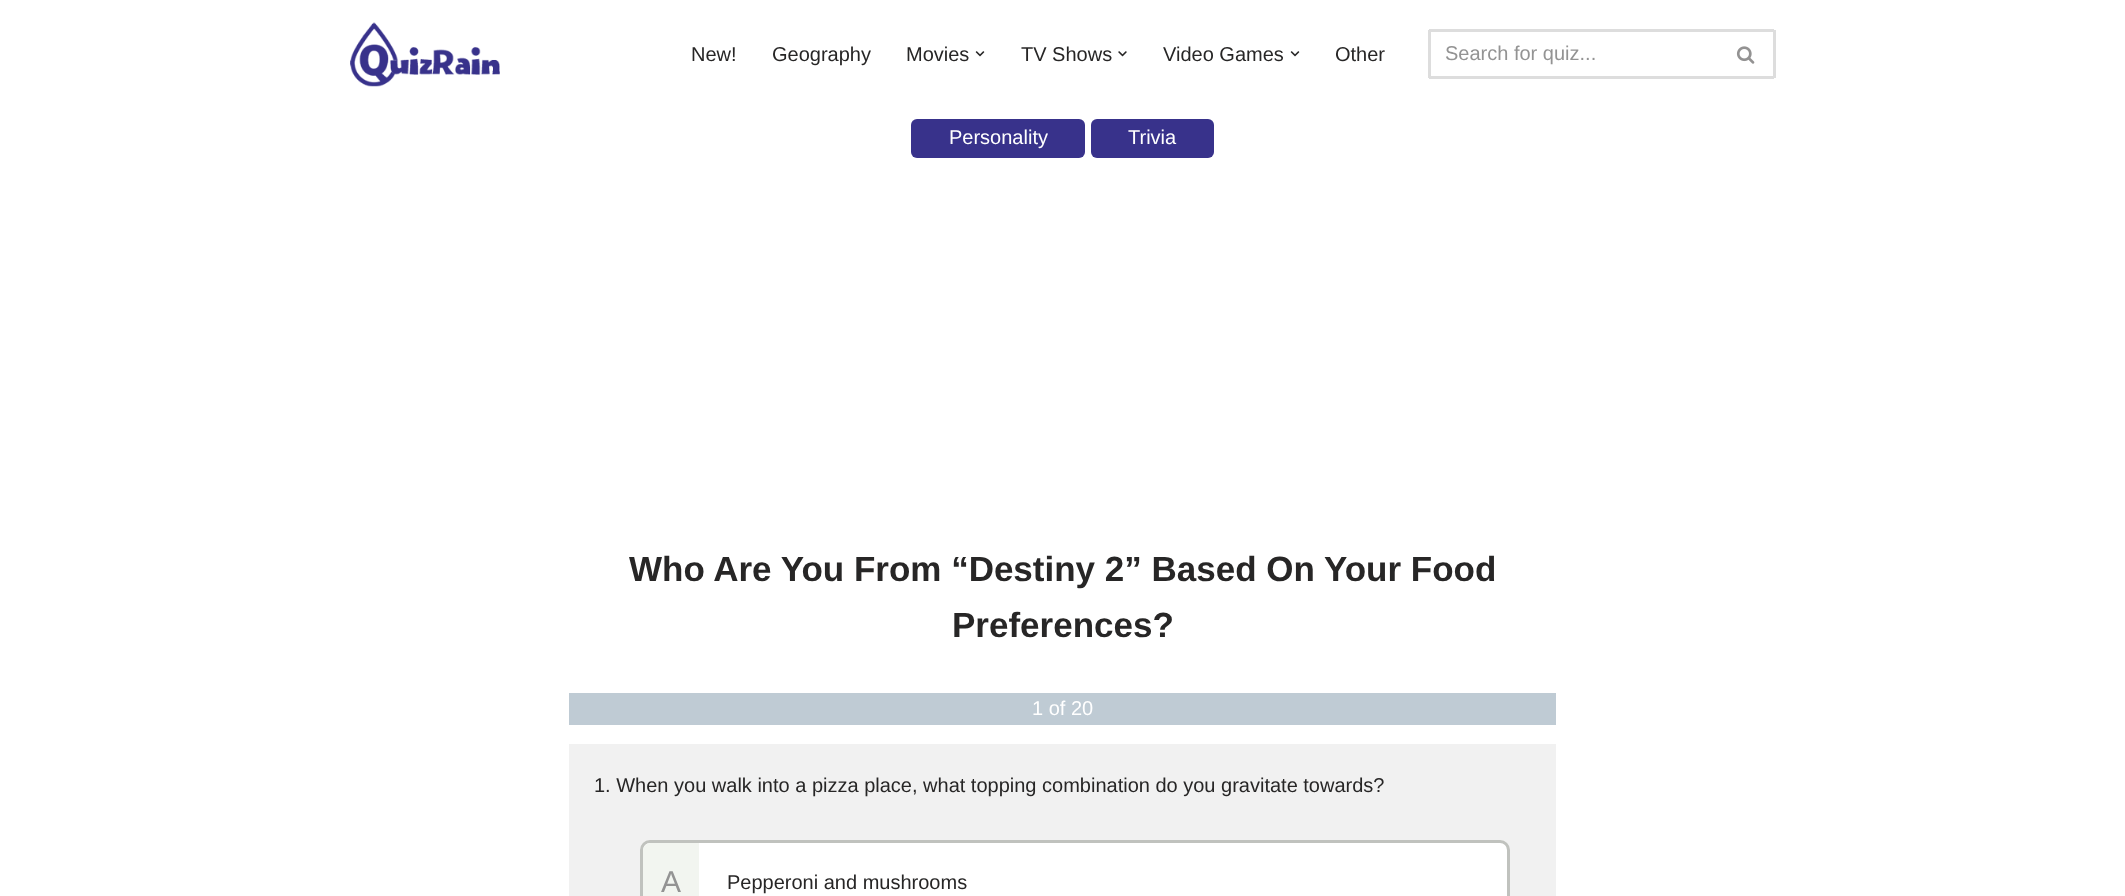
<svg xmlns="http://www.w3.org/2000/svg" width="2125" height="896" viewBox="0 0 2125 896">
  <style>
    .t1 { font: 20px Liberation Sans; fill: #272626; }
    .t2 { font: 20px Liberation Sans; fill: #939393; }
    .t3 { font: 20px Liberation Sans; fill: #fff; }
    .t4 { font: bold 35px Liberation Sans; fill: #272626; }
    .t5 { font: 30px Liberation Sans; fill: #939393; }
  </style>
  <rect width="100%" height="100%" fill="#fff"/>
  <image x="350" y="22" width="150" height="65" href="images/1.png"/>
  <text x="691" y="61" class="t1">New!</text>
  <text x="772" y="61" class="t1">Geography</text>
  <text x="906" y="61" class="t1">Movies</text>
  <image x="975" y="51" width="10" height="6" href="images/2.png"/>
  <text x="1021" y="61" class="t1">TV Shows</text>
  <image x="1118" y="51" width="9" height="6" href="images/3.png"/>
  <text x="1163" y="61" class="t1">Video Games</text>
  <image x="1290" y="51" width="10" height="6" href="images/2.png"/>
  <text x="1335" y="61" class="t1">Other</text>
  <rect x="1429" y="29" width="345" height="3" fill="#ddd"/>
  <rect x="1429" y="76" width="290" height="3" fill="#ddd"/>
  <rect x="1428" y="30" width="3" height="48" fill="#ddd"/>
  <text x="1445" y="60" class="t2">Search for quiz...</text>
  <rect x="1773" y="30" width="3" height="48" fill="#ddd"/>
  <rect x="1719" y="76" width="55" height="3" fill="#ddd"/>
  <image x="1736" y="46" width="19" height="18" href="images/4.png"/>
  <rect x="911" y="119" width="174" height="39" rx="6" fill="#38328b"/>
  <text x="949" y="144" class="t3">Personality</text>
  <rect x="1091" y="119" width="123" height="39" rx="6" fill="#38328b"/>
  <text x="1128" y="144" class="t3">Trivia</text>
  <text x="629" y="581" class="t4">Who Are You From “Destiny 2” Based On Your Food</text>
  <text x="952" y="637" class="t4">Preferences?</text>
  <rect x="569" y="693" width="987" height="32" fill="#bfcbd4"/>
  <text x="1032" y="715" class="t3">1 of 20</text>
  <rect x="569" y="744" width="987" height="152" fill="#f1f1f1"/>
  <text x="594" y="792" class="t1">1. When you walk into a pizza place, what topping combination do you gravitate towards?</text>
  <rect x="641.5" y="841.5" width="867" height="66" rx="8.5" fill="#fff" stroke="#c0c2be" stroke-width="3"/>
  <path d="M651 843H699V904H651C646.5 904 643 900.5 643 896V851C643 846.5 646.5 843 651 843Z" fill="#f2f5f0"/>
  <text x="661" y="892" class="t5">A</text>
  <text x="727" y="889" class="t1">Pepperoni and mushrooms</text>
</svg>
